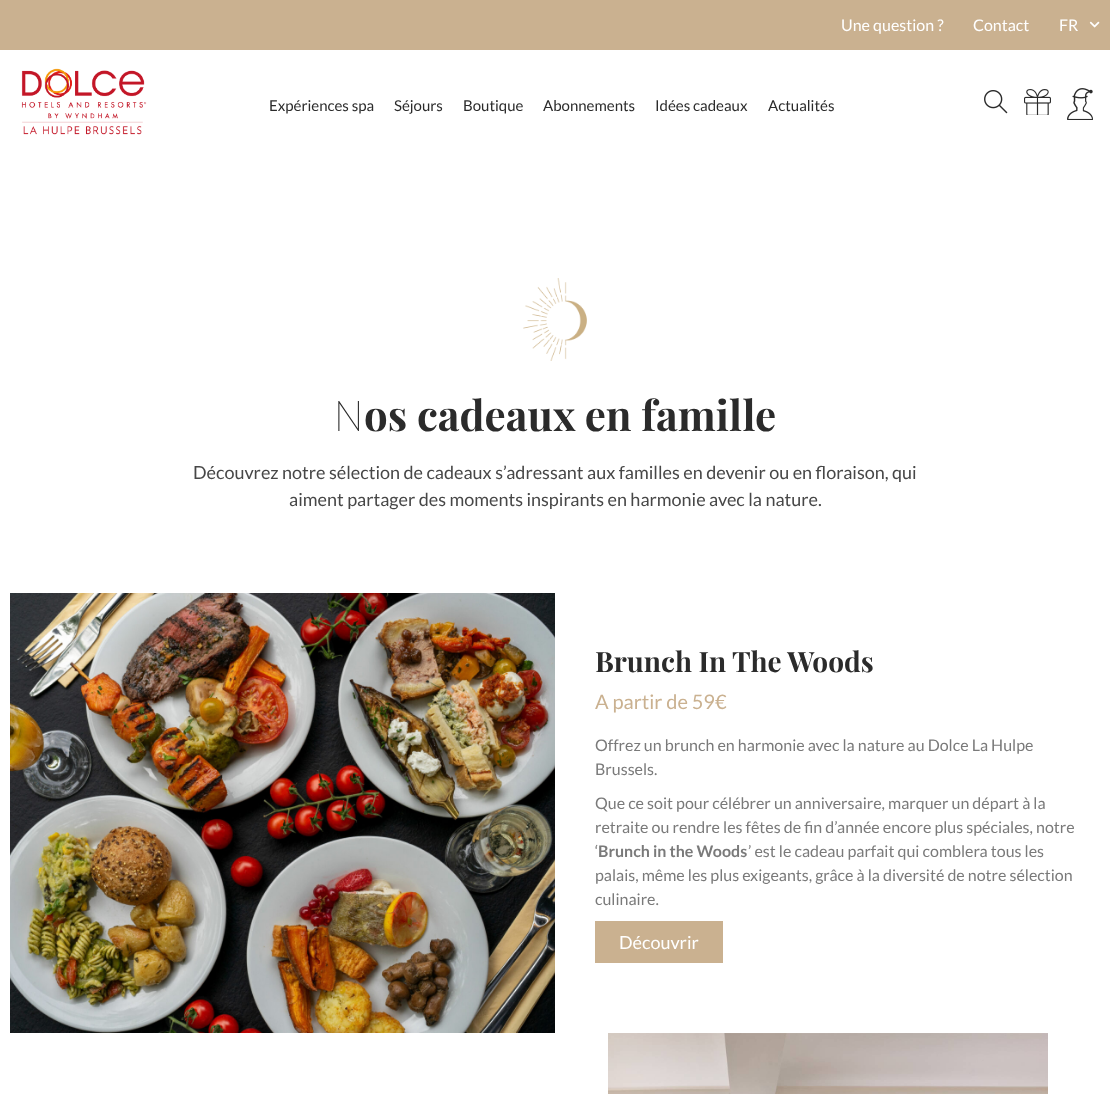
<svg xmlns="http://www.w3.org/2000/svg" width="1110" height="1094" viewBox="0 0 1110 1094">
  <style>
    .t1 { font: 16px Lato; fill: #fff; }
    .t2 { font: 15px Lato; fill: #2b2b2b; }
    .t3 { font: 100 42px Noto Sans; fill: #2b2b2b; }
    .t4 { font: bold 42px Playfair Display; fill: #2b2b2b; }
    .t5 { font: 18px Lato; fill: #474747; }
    .t6 { font: bold 28px Playfair Display; fill: #2b2b2b; }
    .t7 { font: 20px Lato; fill: #cab190; }
    .t8 { font: 16px Lato; fill: #7a7a7a; }
    .t9 { font: bold 16px Lato; fill: #7a7a7a; }
    .t10 { font: 18px Lato; fill: #fff; }
  </style>
  <rect width="100%" height="100%" fill="#fff"/>
  <rect x="0" y="0" width="1110" height="50" fill="#cab190"/>
  <text x="841" y="31" class="t1">Une question ?</text>
  <text x="973" y="31" class="t1">Contact</text>
  <text x="1059" y="31" class="t1">FR</text>
  <image x="1089" y="21" width="11" height="7" href="images/1.png"/>
  <image x="21" y="68" width="126" height="67" href="images/2.png"/>
  <text x="269" y="111" class="t2">Expériences spa</text>
  <text x="394" y="111" class="t2">Séjours</text>
  <text x="463" y="111" class="t2">Boutique</text>
  <text x="543" y="111" class="t2">Abonnements</text>
  <text x="655" y="111" class="t2">Idées cadeaux</text>
  <text x="768" y="111" class="t2">Actualités</text>
  <image x="984" y="90" width="24" height="24" href="images/3.png"/>
  <image x="1024" y="89" width="27" height="26" href="images/4.png"/>
  <image x="1067" y="88" width="26" height="32" href="images/5.png"/>
  <image x="523" y="278" width="64" height="83" href="images/6.png"/>
  <text x="334" y="431" class="t3">N</text>
  <text x="364" y="431" class="t4">os cadeaux en famille</text>
  <text x="193" y="479" class="t5">Découvrez notre sélection de cadeaux s’adressant aux familles en devenir ou en floraison, qui</text>
  <text x="289" y="506" class="t5">aiment partager des moments inspirants en harmonie avec la nature.</text>
  <image x="10" y="593" width="545" height="440" href="images/7.png"/>
  <text x="595" y="672" class="t6">Brunch In The Woods</text>
  <text x="595" y="709" class="t7">A partir de 59€</text>
  <text x="595" y="751" class="t8">Offrez un brunch en harmonie avec la nature au Dolce La Hulpe</text>
  <text x="595" y="775" class="t8">Brussels.</text>
  <text x="595" y="809" class="t8">Que ce soit pour célébrer un anniversaire, marquer un départ à la</text>
  <text x="595" y="833" class="t8">retraite ou rendre les fêtes de fin d’année encore plus spéciales, notre</text>
  <text x="595" y="857" class="t8">‘</text>
  <text x="598" y="857" class="t9">Brunch in the Woods</text>
  <text x="748" y="857" class="t8">’ est le cadeau parfait qui comblera tous les</text>
  <text x="595" y="881" class="t8">palais, même les plus exigeants, grâce à la diversité de notre sélection</text>
  <text x="595" y="905" class="t8">culinaire.</text>
  <rect x="595" y="921" width="128" height="42" fill="#cab190"/>
  <text x="619" y="949" class="t10">Découvrir</text>
  <image x="608" y="1033" width="440" height="61" href="images/8.png"/>
</svg>
